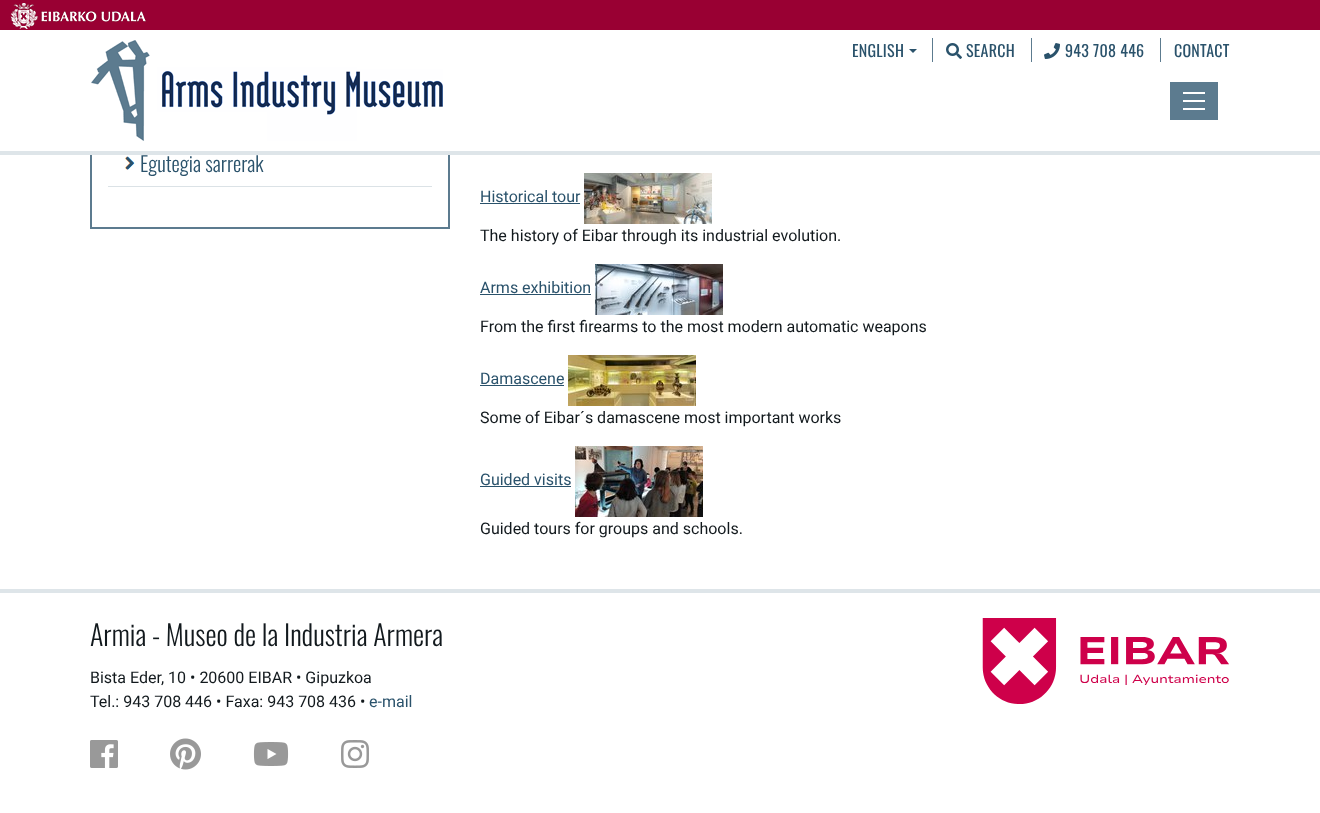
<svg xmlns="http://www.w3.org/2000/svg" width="1320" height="813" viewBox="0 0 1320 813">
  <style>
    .t1 { font: 16px Oswald; letter-spacing: 0.25px; fill: #2a526b; }
    .t2 { font: 300 20.75px Oswald; fill: #2a526b; }
    .t3 { font: 16px Roboto; fill: #2a526b; }
    .t4 { font: 16px Roboto; fill: #12191d; }
    .t5 { font: 300 28px Oswald; fill: #12191d; }
  </style>
  <rect width="100%" height="100%" fill="#fff"/>
  <rect x="91" y="-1" width="358" height="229" fill="none" stroke="#5c7b8f" stroke-width="2"/>
  <rect x="90" y="30" width="360" height="121" fill="#fff"/>
  <rect x="0" y="151" width="1320" height="4" fill="#dee5e9"/>
  <rect x="0" y="0" width="1320" height="30" fill="#903"/>
  <image x="10" y="3" width="136" height="26" href="images/1.png"/>
  <image x="91" y="40" width="352" height="101" href="images/2.png"/>
  <text x="852" y="57" class="t1">ENGLISH</text>
  <path d="M909 49H917L913 53Z" fill="#2a526b"/>
  <rect x="932" y="38" width="1" height="24" fill="#5c7b8f"/>
  <image x="946" y="43" width="16" height="16" href="images/3.png"/>
  <text x="966" y="57" class="t1">SEARCH</text>
  <rect x="1031" y="38" width="1" height="24" fill="#5c7b8f"/>
  <image x="1044" y="43" width="16" height="16" href="images/4.png"/>
  <text x="1065" y="57" class="t1">943 708 446</text>
  <rect x="1160" y="38" width="1" height="24" fill="#5c7b8f"/>
  <text x="1174" y="57" class="t1">CONTACT</text>
  <image x="1170" y="82" width="48" height="38" href="images/5.png"/>
  <rect x="108" y="186" width="324" height="1" fill="#dbe2e6"/>
  <image x="125" y="156" width="10" height="14" href="images/6.png"/>
  <text x="140" y="172" class="t2">Egutegia sarrerak</text>
  <text x="480" y="202" class="t3">Historical tour</text>
  <rect x="480" y="203" width="100" height="1" fill="#2a526b"/>
  <image x="584" y="173" width="128" height="51" href="images/7.png"/>
  <text x="480" y="241" class="t4">The history of Eibar through its industrial evolution.</text>
  <text x="480" y="293" class="t3">Arms exhibition</text>
  <rect x="480" y="294" width="111" height="1" fill="#2a526b"/>
  <image x="595" y="264" width="128" height="51" href="images/8.png"/>
  <text x="480" y="332" class="t4">From the first firearms to the most modern automatic weapons</text>
  <text x="480" y="384" class="t3">Damascene</text>
  <rect x="480" y="385" width="84" height="1" fill="#2a526b"/>
  <image x="568" y="355" width="128" height="51" href="images/9.png"/>
  <text x="480" y="423" class="t4">Some of Eibar´s damascene most important works</text>
  <text x="480" y="485" class="t3">Guided visits</text>
  <rect x="480" y="486" width="91" height="1" fill="#2a526b"/>
  <image x="575" y="446" width="128" height="71" href="images/10.png"/>
  <text x="480" y="534" class="t4">Guided tours for groups and schools.</text>
  <rect x="0" y="589" width="1320" height="4" fill="#dee5e9"/>
  <text x="90" y="646" class="t5">Armia - Museo de la Industria Armera</text>
  <text x="90" y="683" class="t4">Bista Eder, 10 • 20600 EIBAR • Gipuzkoa</text>
  <text x="90" y="707" class="t4">Tel.: 943 708 446 • Faxa: 943 708 436 •</text>
  <text x="369" y="707" class="t3">e-mail</text>
  <image x="90" y="740" width="28" height="28" href="images/11.png"/>
  <image x="170" y="738" width="31" height="32" href="images/12.png"/>
  <image x="253" y="742" width="36" height="24" href="images/13.png"/>
  <image x="341" y="740" width="28" height="28" href="images/14.png"/>
  <image x="982" y="618" width="247" height="86" href="images/15.png"/>
</svg>
